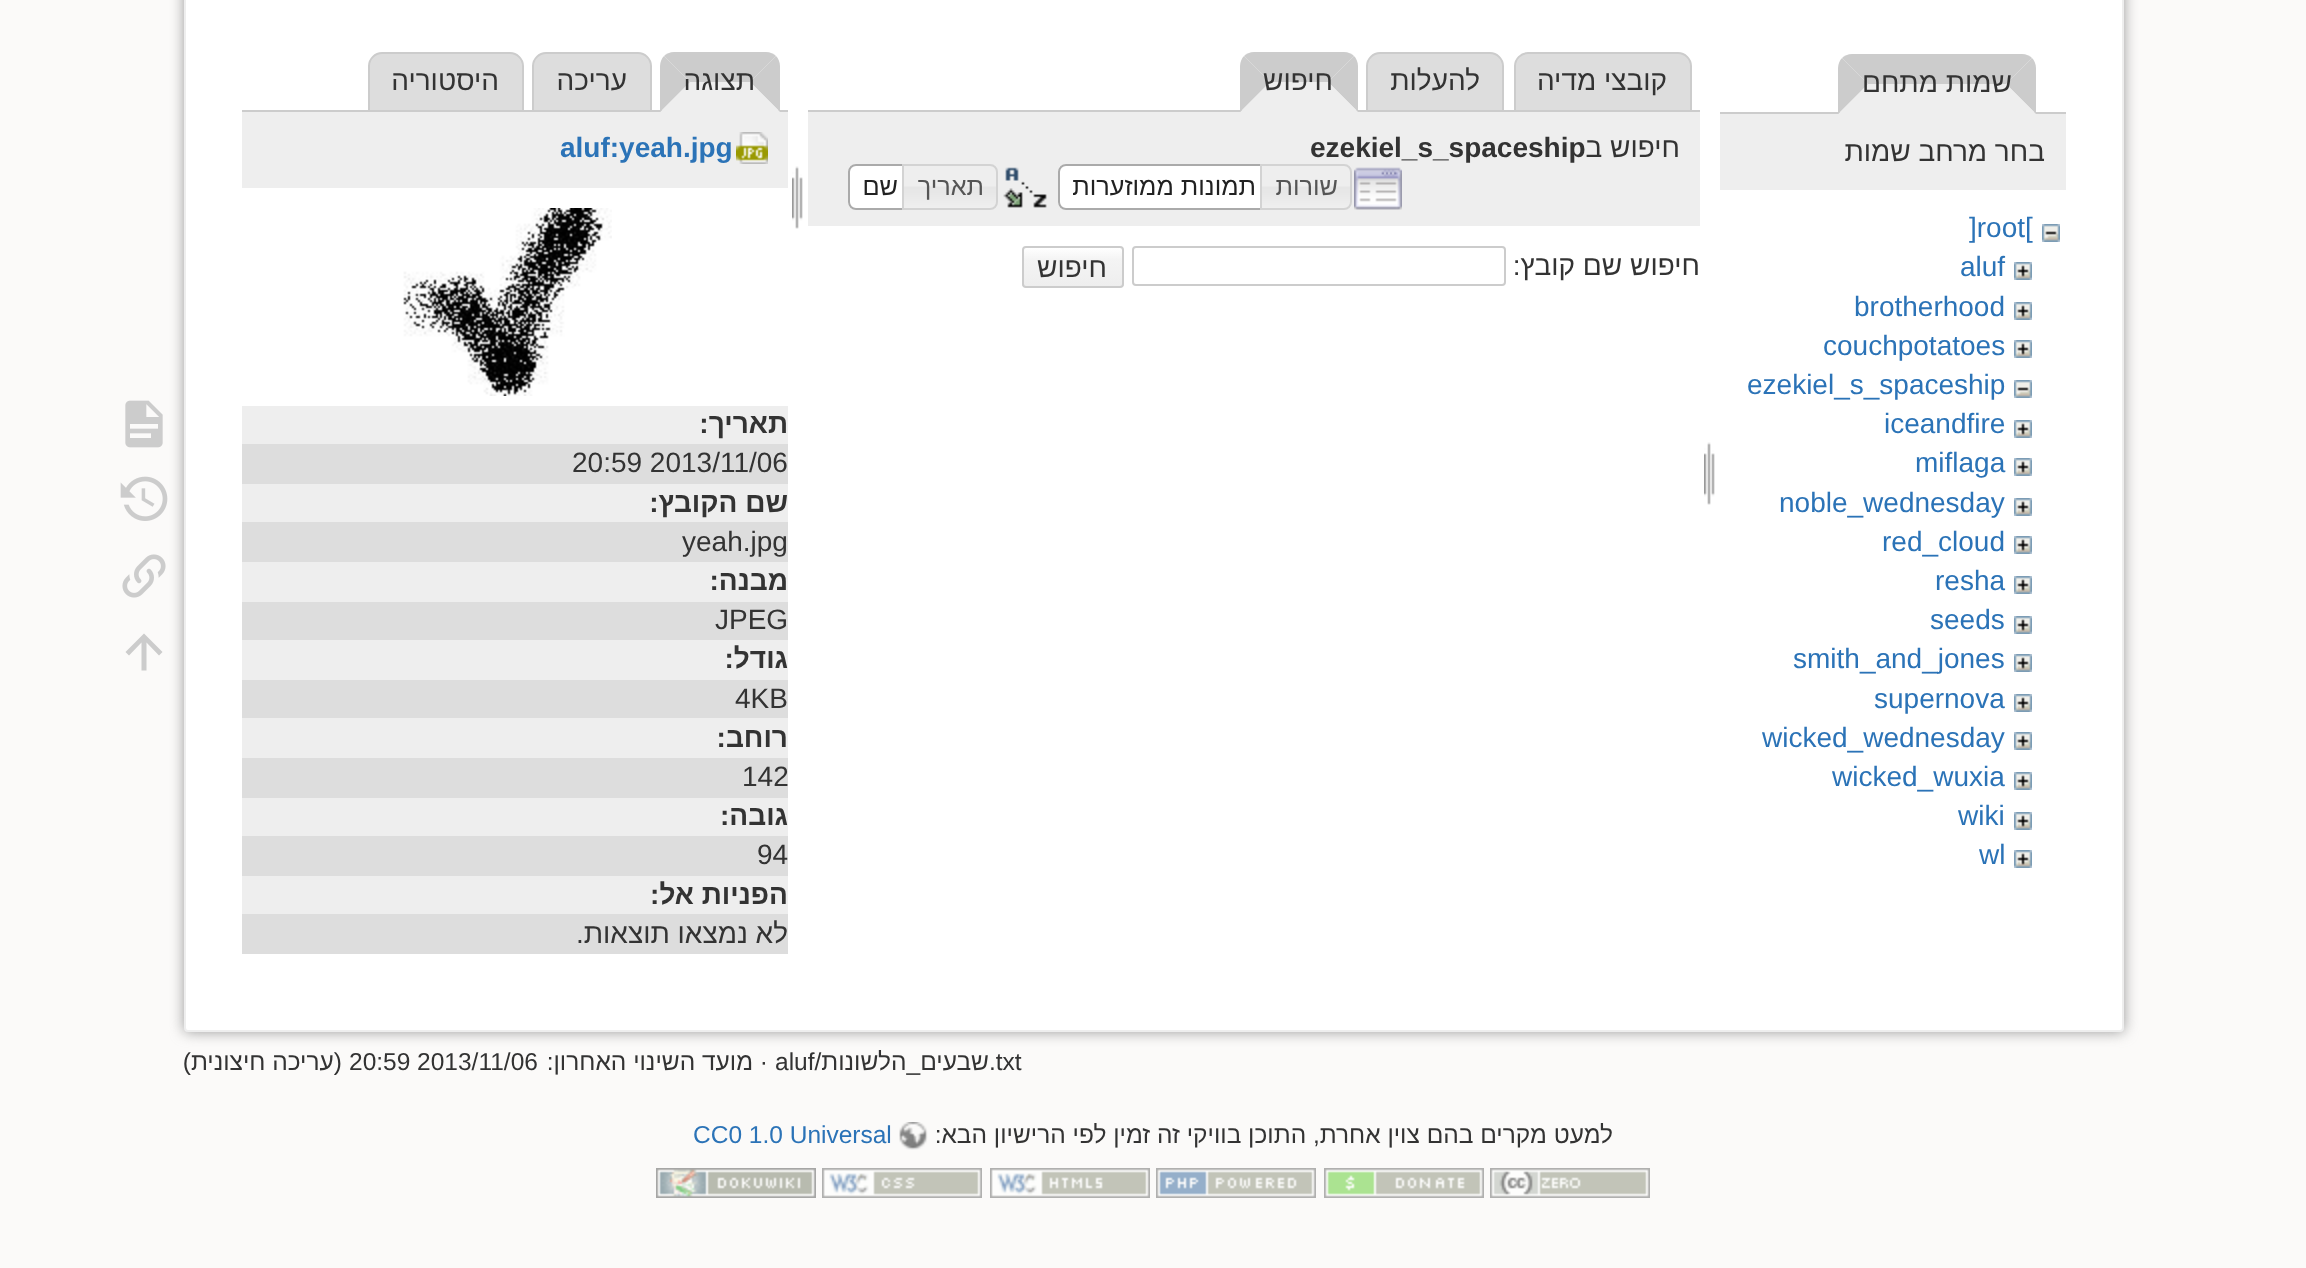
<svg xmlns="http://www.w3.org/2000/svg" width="2306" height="1268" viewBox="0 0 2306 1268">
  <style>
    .t1 { font: 28px Liberation Sans; direction: rtl; fill: #333; }
    .t2 { font: 28px Liberation Sans; fill: #2b73b7; }
    .t3 { font: bold 28px Liberation Sans; fill: #333; }
    .t4 { font: 25.25px Liberation Sans; direction: rtl; fill: #555; }
    .t5 { font: 25.25px Liberation Sans; direction: rtl; fill: #212121; }
    .t6 { font: bold 28px Liberation Sans; fill: #2b73b7; }
    .t7 { font: bold 28px Liberation Sans; direction: rtl; fill: #333; }
    .t8 { font: 28px Liberation Sans; fill: #333; }
    .t9 { font: 24.5px Liberation Sans; fill: #333; }
    .t10 { font: 24.5px Liberation Sans; direction: rtl; fill: #333; }
    .t11 { font: 24.5px Liberation Sans; fill: #2b73b7; }
  </style>
  <defs>
    <clipPath id="clip1"><rect x="1022" y="246" width="102" height="42" rx="4"/></clipPath>
    <linearGradient id="g1" gradientUnits="userSpaceOnUse" x1="1073" y1="248" x2="1073" y2="286"><stop offset="0" stop-color="#fff"/><stop offset="0.3" stop-color="#f4f4f4"/><stop offset="0.99" stop-color="#eee"/><stop offset="0.99" stop-color="#ccc"/></linearGradient>
  </defs>
  <rect width="100%" height="100%" fill="#fbfaf9"/>
  <rect x="184" y="-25" width="1940" height="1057" rx="4" fill="#999" filter="blur(7px)"/>
  <rect x="185" y="-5" width="1938" height="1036" rx="3" fill="#fff" stroke="#eee" stroke-width="2"/>
  <path d="M1852 54H2022C2026 54 2030 56 2032 58L2006 84H1868L1842 58C1844 56 1848 54 1852 54Z" fill="#ccc"/>
  <rect x="1720" y="112" width="346" height="2" fill="#ccc"/>
  <path d="M2032 58L2006 84L2036 114V68C2036 64 2034 60 2032 58Z" fill="#ccc"/>
  <path d="M2036 114L2006 84H1868L1838 114Z" fill="#eee"/>
  <path d="M1838 114V68C1838 64 1840 60 1842 58L1868 84Z" fill="#ccc"/>
  <text x="2012" y="92" class="t1">שמות מתחם</text>
  <rect x="1720" y="114" width="346" height="76" fill="#eee"/>
  <text x="2045" y="161" class="t1">בחר מרחב שמות</text>
  <image x="2042" y="224" width="18" height="18" href="images/1.png"/>
  <text x="1969" y="237" class="t2">]root[</text>
  <image x="2014" y="262" width="18" height="18" href="images/2.png"/>
  <text x="1960" y="276" class="t2">aluf</text>
  <image x="2014" y="302" width="18" height="18" href="images/2.png"/>
  <text x="1854" y="316" class="t2">brotherhood</text>
  <image x="2014" y="340" width="18" height="18" href="images/2.png"/>
  <text x="1823" y="355" class="t2">couchpotatoes</text>
  <image x="2014" y="380" width="18" height="18" href="images/1.png"/>
  <text x="1747" y="394" class="t2">ezekiel_s_spaceship</text>
  <image x="2014" y="420" width="18" height="18" href="images/2.png"/>
  <text x="1884" y="433" class="t2">iceandfire</text>
  <image x="2014" y="458" width="18" height="18" href="images/2.png"/>
  <text x="1915" y="472" class="t2">miflaga</text>
  <image x="2014" y="498" width="18" height="18" href="images/2.png"/>
  <text x="1779" y="512" class="t2">noble_wednesday</text>
  <image x="2014" y="536" width="18" height="18" href="images/2.png"/>
  <text x="1882" y="551" class="t2">red_cloud</text>
  <image x="2014" y="576" width="18" height="18" href="images/2.png"/>
  <text x="1935" y="590" class="t2">resha</text>
  <image x="2014" y="616" width="18" height="18" href="images/2.png"/>
  <text x="1930" y="629" class="t2">seeds</text>
  <image x="2014" y="654" width="18" height="18" href="images/2.png"/>
  <text x="1793" y="668" class="t2">smith_and_jones</text>
  <image x="2014" y="694" width="18" height="18" href="images/2.png"/>
  <text x="1874" y="708" class="t2">supernova</text>
  <image x="2014" y="732" width="18" height="18" href="images/2.png"/>
  <text x="1762" y="747" class="t2">wicked_wednesday</text>
  <image x="2014" y="772" width="18" height="18" href="images/2.png"/>
  <text x="1832" y="786" class="t2">wicked_wuxia</text>
  <image x="2014" y="812" width="18" height="18" href="images/2.png"/>
  <text x="1958" y="825" class="t2">wiki</text>
  <image x="2014" y="850" width="18" height="18" href="images/2.png"/>
  <text x="1979" y="864" class="t2">wl</text>
  <image x="1704" y="442" width="11" height="63" href="images/3.png"/>
  <path d="M1528 53H1678C1685 53 1691 59 1691 66V111H1515V66C1515 59 1521 53 1528 53Z" fill="#ddd" stroke="#ccc" stroke-width="2"/>
  <text x="1667" y="90" class="t1">קובצי מדיה</text>
  <path d="M1380 53H1490C1497 53 1503 59 1503 66V111H1367V66C1367 59 1373 53 1380 53Z" fill="#ddd" stroke="#ccc" stroke-width="2"/>
  <text x="1480" y="90" class="t1">להעלות</text>
  <path d="M1254 52H1344C1348 52 1352 54 1354 56L1328 82H1270L1244 56C1246 54 1250 52 1254 52Z" fill="#ccc"/>
  <rect x="808" y="110" width="892" height="2" fill="#ccc"/>
  <path d="M1354 56L1328 82L1358 112V66C1358 62 1356 58 1354 56Z" fill="#ccc"/>
  <path d="M1358 112L1328 82H1270L1240 112Z" fill="#eee"/>
  <path d="M1240 112V66C1240 62 1242 58 1244 56L1270 82Z" fill="#ccc"/>
  <text x="1333" y="90" class="t1">חיפוש</text>
  <rect x="808" y="112" width="892" height="114" fill="#eee"/>
  <text x="1680" y="157" class="t1">חיפוש ב</text>
  <text x="1310" y="157" class="t3">ezekiel_s_spaceship</text>
  <image x="1354" y="167" width="48" height="43" href="images/4.png"/>
  <path d="M1066 164H1270V210H1066C1061.5 210 1058 206.5 1058 202V172C1058 167.5 1061.5 164 1066 164Z" fill="#fff"/>
  <image x="1058" y="164" width="6" height="46" href="images/6.png"/>
  <path d="M1066 165H1269V209H1066C1062 209 1059 206 1059 202V172C1059 168 1062 165 1066 165Z" fill="none" stroke="#aaa" stroke-width="2"/>
  <image x="1262" y="164" width="90" height="46" href="images/5.png"/>
  <path d="M1261 165H1344C1348 165 1351 168 1351 172V202C1351 206 1348 209 1344 209H1261Z" fill="none" stroke="#d3d3d3" stroke-width="2"/>
  <text x="1338" y="195" class="t4">שורות</text>
  <text x="1256" y="195" class="t5">תמונות ממוזערות</text>
  <image x="1003" y="167" width="44" height="41" href="images/7.png"/>
  <path d="M856 164H912V210H856C851.5 210 848 206.5 848 202V172C848 167.5 851.5 164 856 164Z" fill="#fff"/>
  <image x="848" y="164" width="6" height="46" href="images/6.png"/>
  <path d="M856 165H911V209H856C852 209 849 206 849 202V172C849 168 852 165 856 165Z" fill="none" stroke="#aaa" stroke-width="2"/>
  <image x="904" y="164" width="94" height="46" href="images/8.png"/>
  <path d="M903 165H990C994 165 997 168 997 172V202C997 206 994 209 990 209H903Z" fill="none" stroke="#d3d3d3" stroke-width="2"/>
  <text x="984" y="195" class="t4">תאריך</text>
  <text x="898" y="195" class="t5">שם</text>
  <image x="792" y="166" width="11" height="63" href="images/3.png"/>
  <text x="1700" y="275" class="t1">חיפוש שם קובץ:</text>
  <rect x="1133" y="247" width="372" height="38" rx="3" fill="none" stroke="#ccc" stroke-width="2"/>
  <g clip-path="url(#clip1)">
    <rect x="1022" y="248" width="102" height="38" fill="url(#g1)"/>
  </g>
  <rect x="1023" y="247" width="100" height="40" rx="3" fill="none" stroke="#ccc" stroke-width="2"/>
  <text x="1107" y="277" class="t1">חיפוש</text>
  <path d="M674 52H766C770 52 774 54 776 56L750 82H690L664 56C666 54 670 52 674 52Z" fill="#ccc"/>
  <path d="M546 53H638C645 53 651 59 651 66V111H533V66C533 59 539 53 546 53Z" fill="#ddd" stroke="#ccc" stroke-width="2"/>
  <path d="M382 53H510C517 53 523 59 523 66V111H369V66C369 59 375 53 382 53Z" fill="#ddd" stroke="#ccc" stroke-width="2"/>
  <rect x="242" y="110" width="546" height="2" fill="#ccc"/>
  <path d="M776 56L750 82L780 112V66C780 62 778 58 776 56Z" fill="#ccc"/>
  <path d="M780 112L750 82H690L660 112Z" fill="#eee"/>
  <path d="M660 112V66C660 62 662 58 664 56L690 82Z" fill="#ccc"/>
  <text x="755" y="90" class="t1">תצוגה</text>
  <text x="627" y="90" class="t1">עריכה</text>
  <text x="499" y="90" class="t1">היסטוריה</text>
  <rect x="242" y="112" width="546" height="76" fill="#eee"/>
  <image x="736" y="132" width="32" height="32" href="images/9.png"/>
  <text x="560" y="157" class="t6">aluf:yeah.jpg</text>
  <image x="403" y="208" width="209" height="188" href="images/10.png"/>
  <rect x="242" y="406" width="546" height="38" fill="#eee"/>
  <text x="788" y="433" class="t7">תאריך:</text>
  <rect x="242" y="444" width="546" height="40" fill="#ddd"/>
  <text x="572" y="472" class="t8">20:59 2013/11/06</text>
  <rect x="242" y="484" width="546" height="38" fill="#eee"/>
  <text x="788" y="512" class="t7">שם הקובץ:</text>
  <rect x="242" y="522" width="546" height="40" fill="#ddd"/>
  <text x="682" y="551" class="t8">yeah.jpg</text>
  <rect x="242" y="562" width="546" height="40" fill="#eee"/>
  <text x="788" y="590" class="t7">מבנה:</text>
  <rect x="242" y="602" width="546" height="38" fill="#ddd"/>
  <text x="715" y="629" class="t8">JPEG</text>
  <rect x="242" y="640" width="546" height="40" fill="#eee"/>
  <text x="788" y="668" class="t7">גודל:</text>
  <rect x="242" y="680" width="546" height="38" fill="#ddd"/>
  <text x="735" y="708" class="t8">4KB</text>
  <rect x="242" y="718" width="546" height="40" fill="#eee"/>
  <text x="788" y="747" class="t7">רוחב:</text>
  <rect x="242" y="758" width="546" height="40" fill="#ddd"/>
  <text x="742" y="786" class="t8">142</text>
  <rect x="242" y="798" width="546" height="38" fill="#eee"/>
  <text x="788" y="825" class="t7">גובה:</text>
  <rect x="242" y="836" width="546" height="40" fill="#ddd"/>
  <text x="757" y="864" class="t8">94</text>
  <rect x="242" y="876" width="546" height="38" fill="#eee"/>
  <text x="788" y="904" class="t7">הפניות אל:</text>
  <rect x="242" y="914" width="546" height="40" fill="#ddd"/>
  <text x="788" y="943" class="t1">לא נמצאו תוצאות.</text>
  <text x="989" y="1070" class="t9">.txt</text>
  <text x="775" y="1070" class="t9">aluf/</text>
  <text x="989" y="1070" class="t10">שבעים_הלשונות</text>
  <text x="768" y="1070" class="t10">· מועד השינוי האחרון:</text>
  <text x="349" y="1070" class="t9">20:59 2013/11/06</text>
  <text x="342" y="1070" class="t10">(עריכה חיצונית)</text>
  <image x="125" y="400" width="38" height="48" href="images/11.png"/>
  <image x="120" y="476" width="48" height="45" href="images/12.png"/>
  <image x="122" y="554" width="44" height="44" href="images/13.png"/>
  <path d="M146.5 670.5H141.5V642.5L129 655.5L125.5 652L144 633.5L162.5 652L159 655.5L146.5 642.5Z" fill="#ccc"/>
  <text x="1613" y="1143" class="t10">למעט מקרים בהם צוין אחרת, התוכן בוויקי זה זמין לפי הרישיון הבא:</text>
  <image x="899" y="1122" width="29" height="28" href="images/14.png"/>
  <text x="693" y="1143" class="t11">CC0 1.0 Universal</text>
  <image x="1490" y="1168" width="160" height="30" href="images/15.png"/>
  <image x="1324" y="1168" width="160" height="30" href="images/16.png"/>
  <image x="1156" y="1168" width="160" height="30" href="images/17.png"/>
  <image x="990" y="1168" width="160" height="30" href="images/18.png"/>
  <image x="822" y="1168" width="160" height="30" href="images/19.png"/>
  <image x="656" y="1168" width="160" height="30" href="images/20.png"/>
</svg>
